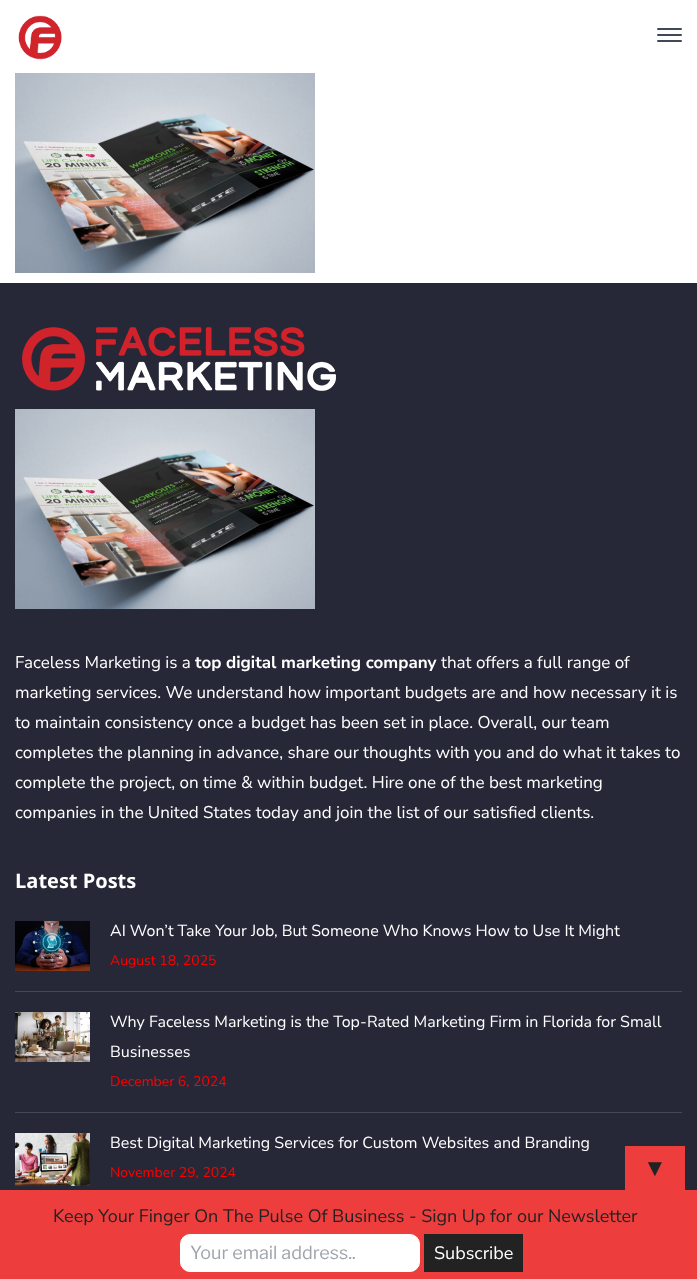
<svg xmlns="http://www.w3.org/2000/svg" width="697" height="1279" viewBox="0 0 697 1279">
  <style>
    .t1 { font: 17px Nunito Sans; fill: #fff; }
    .t2 { font: bold 17px Nunito Sans; fill: #fff; }
    .t3 { font: bold 20px Open Sans; fill: #fff; }
    .t4 { font: 16px Nunito Sans; fill: #fff; }
    .t5 { font: 14px Nunito Sans; fill: #f00; }
    .t6 { font: 24px Liberation Serif; fill: #222; }
    .t7 { font: 18px Nunito Sans; fill: #222; }
    .t8 { font: 18px Libre Franklin; fill: #9fa5ac; }
    .t9 { font: 18px Nunito Sans; fill: #fff; }
  </style>
  <rect width="100%" height="100%" fill="#fff"/>
  <image x="18" y="15" width="44" height="45" href="images/1.png"/>
  <rect x="657" y="28" width="25" height="2" rx="1" fill="#3e4a59"/>
  <rect x="657" y="34" width="25" height="2" rx="1" fill="#3e4a59"/>
  <rect x="657" y="40" width="25" height="2" rx="1" fill="#3e4a59"/>
  <image x="15" y="73" width="300" height="200" href="images/2.png"/>
  <rect x="0" y="283" width="697" height="907" fill="#262838"/>
  <image x="22" y="327" width="314" height="64" href="images/3.png"/>
  <image x="15" y="409" width="300" height="200" href="images/2.png"/>
  <text x="15" y="668" class="t1">Faceless Marketing is a</text>
  <text x="195" y="668" class="t2">top digital marketing company</text>
  <text x="441" y="668" class="t1">that offers a full range of</text>
  <text x="15" y="698" class="t1">marketing services. We understand how important budgets are and how necessary it is</text>
  <text x="15" y="728" class="t1">to maintain consistency once a budget has been set in place. Overall, our team</text>
  <text x="15" y="758" class="t1">completes the planning in advance, share our thoughts with you and do what it takes to</text>
  <text x="15" y="788" class="t1">complete the project, on time &amp; within budget. Hire one of the best marketing</text>
  <text x="15" y="818" class="t1">companies in the United States today and join the list of our satisfied clients.</text>
  <text x="15" y="888" class="t3">Latest Posts</text>
  <rect x="15" y="991" width="667" height="1" fill="#474856"/>
  <image x="15" y="921" width="75" height="50" href="images/4.png"/>
  <text x="110" y="936" class="t4">AI Won’t Take Your Job, But Someone Who Knows How to Use It Might</text>
  <text x="110" y="965" class="t5">August 18, 2025</text>
  <rect x="15" y="1112" width="667" height="1" fill="#474856"/>
  <image x="15" y="1012" width="75" height="50" href="images/5.png"/>
  <text x="110" y="1027" class="t4">Why Faceless Marketing is the Top-Rated Marketing Firm in Florida for Small</text>
  <text x="110" y="1057" class="t4">Businesses</text>
  <text x="110" y="1086" class="t5">December 6, 2024</text>
  <image x="15" y="1133" width="75" height="53" href="images/6.png"/>
  <text x="110" y="1148" class="t4">Best Digital Marketing Services for Custom Websites and Branding</text>
  <text x="110" y="1177" class="t5">November 29, 2024</text>
  <rect x="625" y="1146" width="60" height="44" fill="#ed3d3d"/>
  <text x="643" y="1176" class="t6">▼</text>
  <rect x="0" y="1190" width="697" height="89" fill="#ed3d3d"/>
  <text x="53" y="1222" class="t7">Keep Your Finger On The Pulse Of Business - Sign Up for our Newsletter</text>
  <rect x="180.5" y="1234.5" width="239" height="37" rx="9.5" fill="#fff" stroke="#fff"/>
  <text x="190" y="1259" class="t8">Your email address..</text>
  <rect x="424" y="1234" width="99" height="38" fill="#222"/>
  <text x="434" y="1259" class="t9">Subscribe</text>
</svg>
